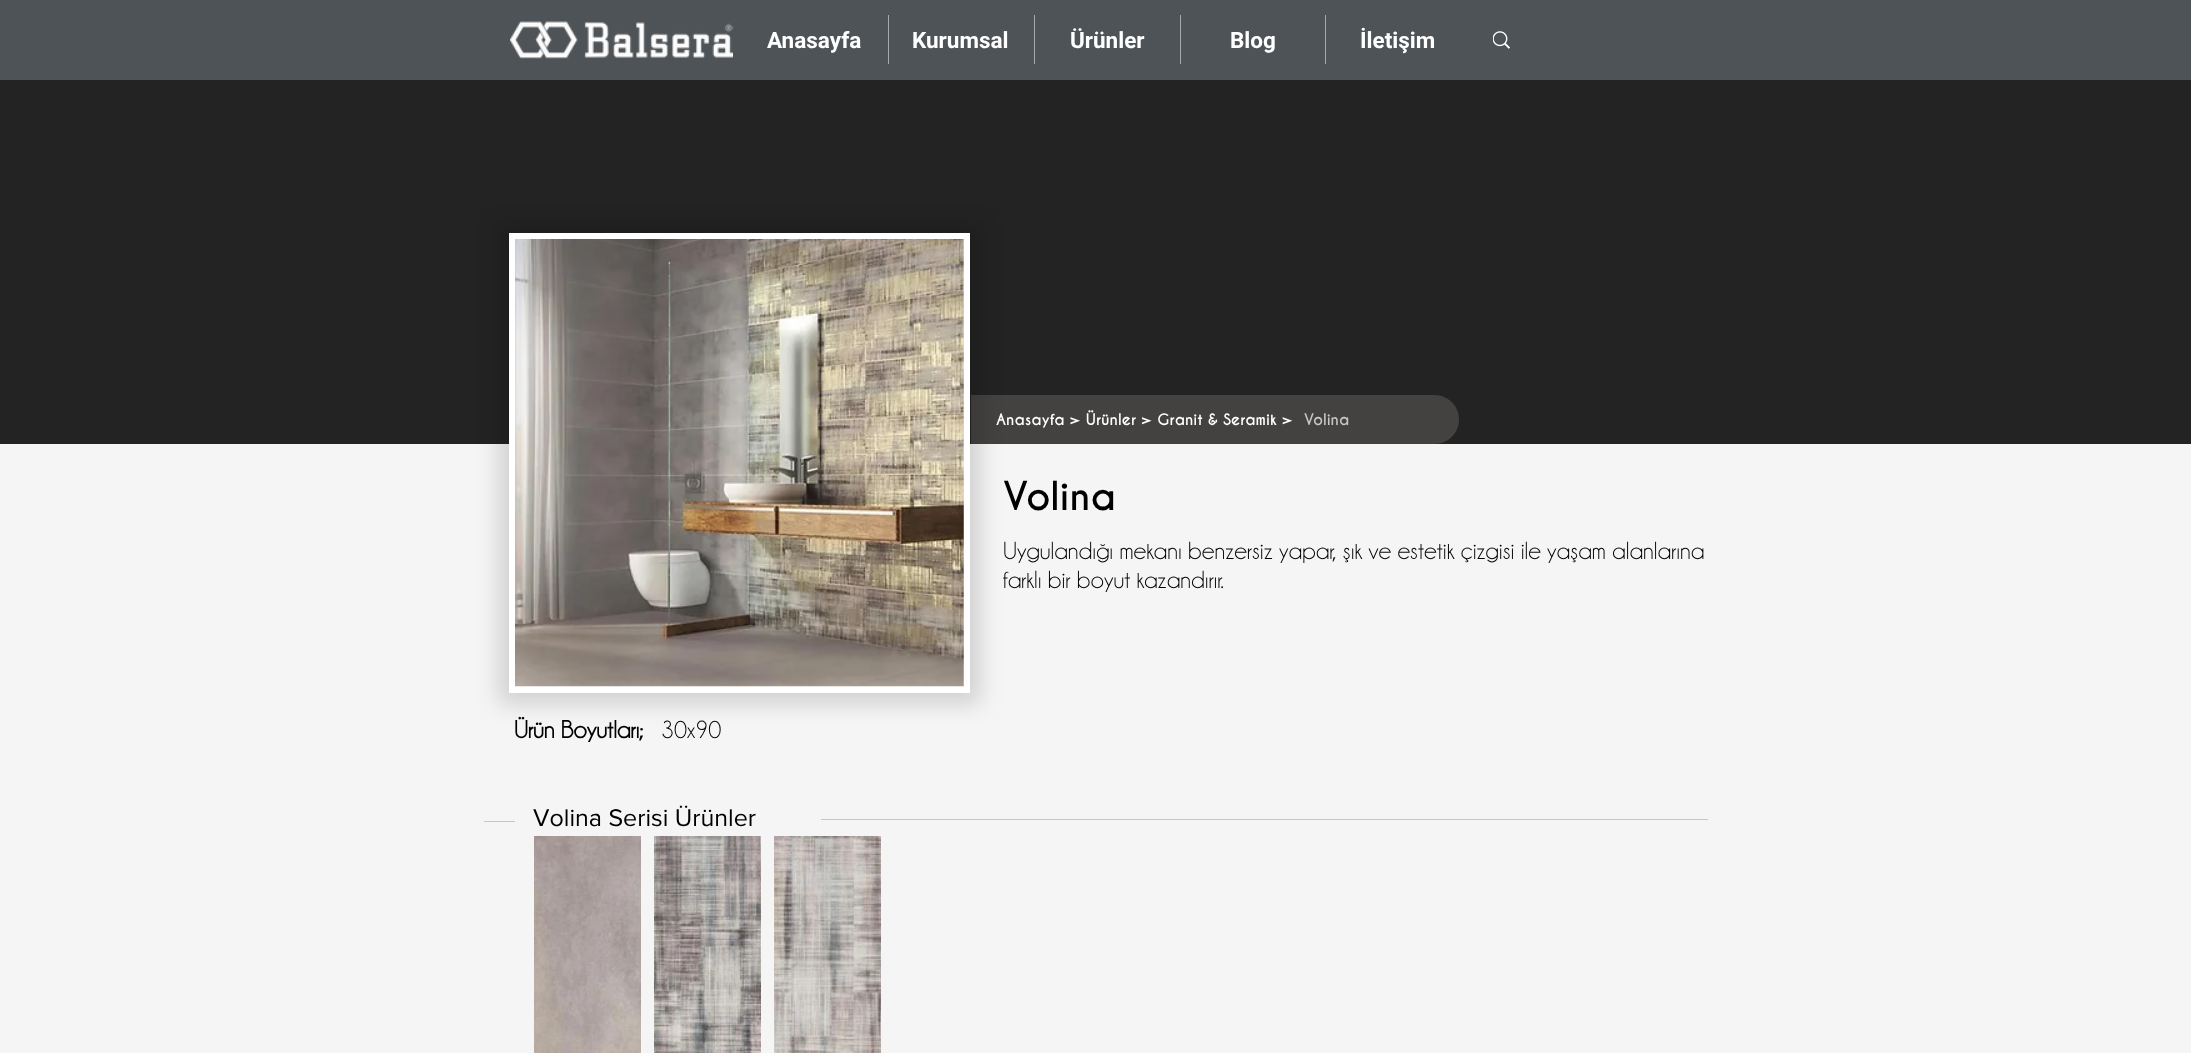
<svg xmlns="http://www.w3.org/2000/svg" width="2191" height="1053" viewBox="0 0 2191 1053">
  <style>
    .t1 { font: bold 22.5px Roboto; fill: #fff; }
    .t2 { font: bold 15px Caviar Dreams; fill: #fff; }
    .t3 { font: bold 15px Caviar Dreams; fill: #c7c7c7; }
    .t4 { font: bold 37.5px Caviar Dreams; fill: #000; }
    .t5 { font: 25px 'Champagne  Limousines'; fill: #000; }
    .t6 { font: bold 25px 'Champagne  Limousines'; fill: #000; }
    .t7 { font: 25px 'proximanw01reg'; fill: #000; }
  </style>
  <rect width="100%" height="100%" fill="#f5f5f5"/>
  <rect x="0" y="0" width="2191" height="80" fill="#4e5357"/>
  <image x="510" y="21" width="223" height="38" href="images/1.png"/>
  <text x="767" y="48" class="t1">Anasayfa</text>
  <rect x="888" y="15" width="1" height="49" fill="#a7a9ab"/>
  <text x="912" y="48" class="t1">Kurumsal</text>
  <rect x="1034" y="15" width="1" height="49" fill="#a7a9ab"/>
  <text x="1070" y="48" class="t1">Ürünler</text>
  <rect x="1180" y="15" width="1" height="49" fill="#a7a9ab"/>
  <text x="1230" y="48" class="t1">Blog</text>
  <rect x="1325" y="15" width="1" height="49" fill="#a7a9ab"/>
  <text x="1360" y="48" class="t1">İletişim</text>
  <image x="1493" y="31" width="17" height="18" href="images/2.png"/>
  <rect x="0" y="80" width="2191" height="364" fill="#242323"/>
  <path d="M971 395H1434.5C1448 395 1459 406 1459 419.5C1459 433 1448 444 1434.5 444H971Z" fill="#434241"/>
  <rect x="499" y="224" width="481" height="480" fill="#00000026" filter="blur(11px)"/>
  <rect x="515" y="239" width="449" height="448" fill="#fff"/>
  <image x="515" y="239" width="449" height="448" href="images/3.png"/>
  <rect x="512" y="236" width="455" height="454" fill="none" stroke="#fff" stroke-width="6"/>
  <text x="996" y="425" class="t2">Anasayfa &gt; Ürünler &gt; Granit &amp; Seramik &gt;</text>
  <text x="1304" y="425" class="t3">Volina</text>
  <text x="1003" y="510" class="t4">Volina</text>
  <text x="1003" y="559" class="t5">Uygulandığı mekanı benzersiz yapar, şık ve estetik çizgisi ile yaşam alanlarına</text>
  <text x="1003" y="588" class="t5">farklı bir boyut kazandırır.</text>
  <text x="514" y="738" class="t6">Ürün Boyutları;</text>
  <text x="661" y="738" class="t5">30x90</text>
  <text x="533" y="826" class="t7">Volina Serisi Ürünler</text>
  <rect x="821" y="819" width="887" height="1" fill="#c7c7c7"/>
  <rect x="484" y="821" width="31" height="1" fill="#c7c7c7"/>
  <image x="534" y="836" width="107" height="217" href="images/4.png"/>
  <image x="654" y="836" width="107" height="217" href="images/5.png"/>
  <image x="774" y="836" width="107" height="217" href="images/6.png"/>
</svg>
